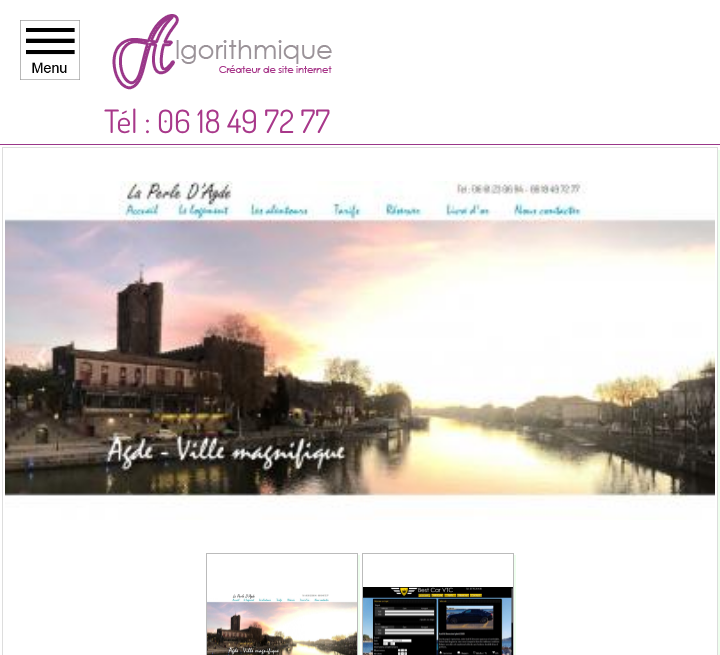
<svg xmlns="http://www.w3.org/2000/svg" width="720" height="655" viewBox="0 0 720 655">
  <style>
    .t1 { font: 32px Dosis; fill: #a8388a; }
  </style>
  <rect width="100%" height="100%" fill="#fff"/>
  <image x="20" y="20" width="60" height="60" href="images/1.png"/>
  <rect x="0" y="144" width="720" height="1" fill="#9a3789"/>
  <image x="112" y="14" width="220" height="76" href="images/2.png"/>
  <text x="104" y="133" class="t1">Tél : 06 18 49 72 77</text>
  <path d="M5 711V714H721V150H718V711Z" fill="#efe"/>
  <rect x="2.5" y="147.5" width="715" height="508" fill="none" stroke="#ddd"/>
  <image x="5" y="181" width="710" height="339" href="images/3.png"/>
  <path d="M208 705V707H360V555H358V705Z" fill="#efe"/>
  <image x="207" y="594" width="150" height="61" href="images/4.png"/>
  <rect x="206.5" y="553.5" width="151" height="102" fill="none" stroke="#bbb"/>
  <path d="M364 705V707H516V555H514V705Z" fill="#efe"/>
  <image x="363" y="587" width="150" height="68" href="images/5.png"/>
  <rect x="362.5" y="553.5" width="151" height="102" fill="none" stroke="#bbb"/>
</svg>
